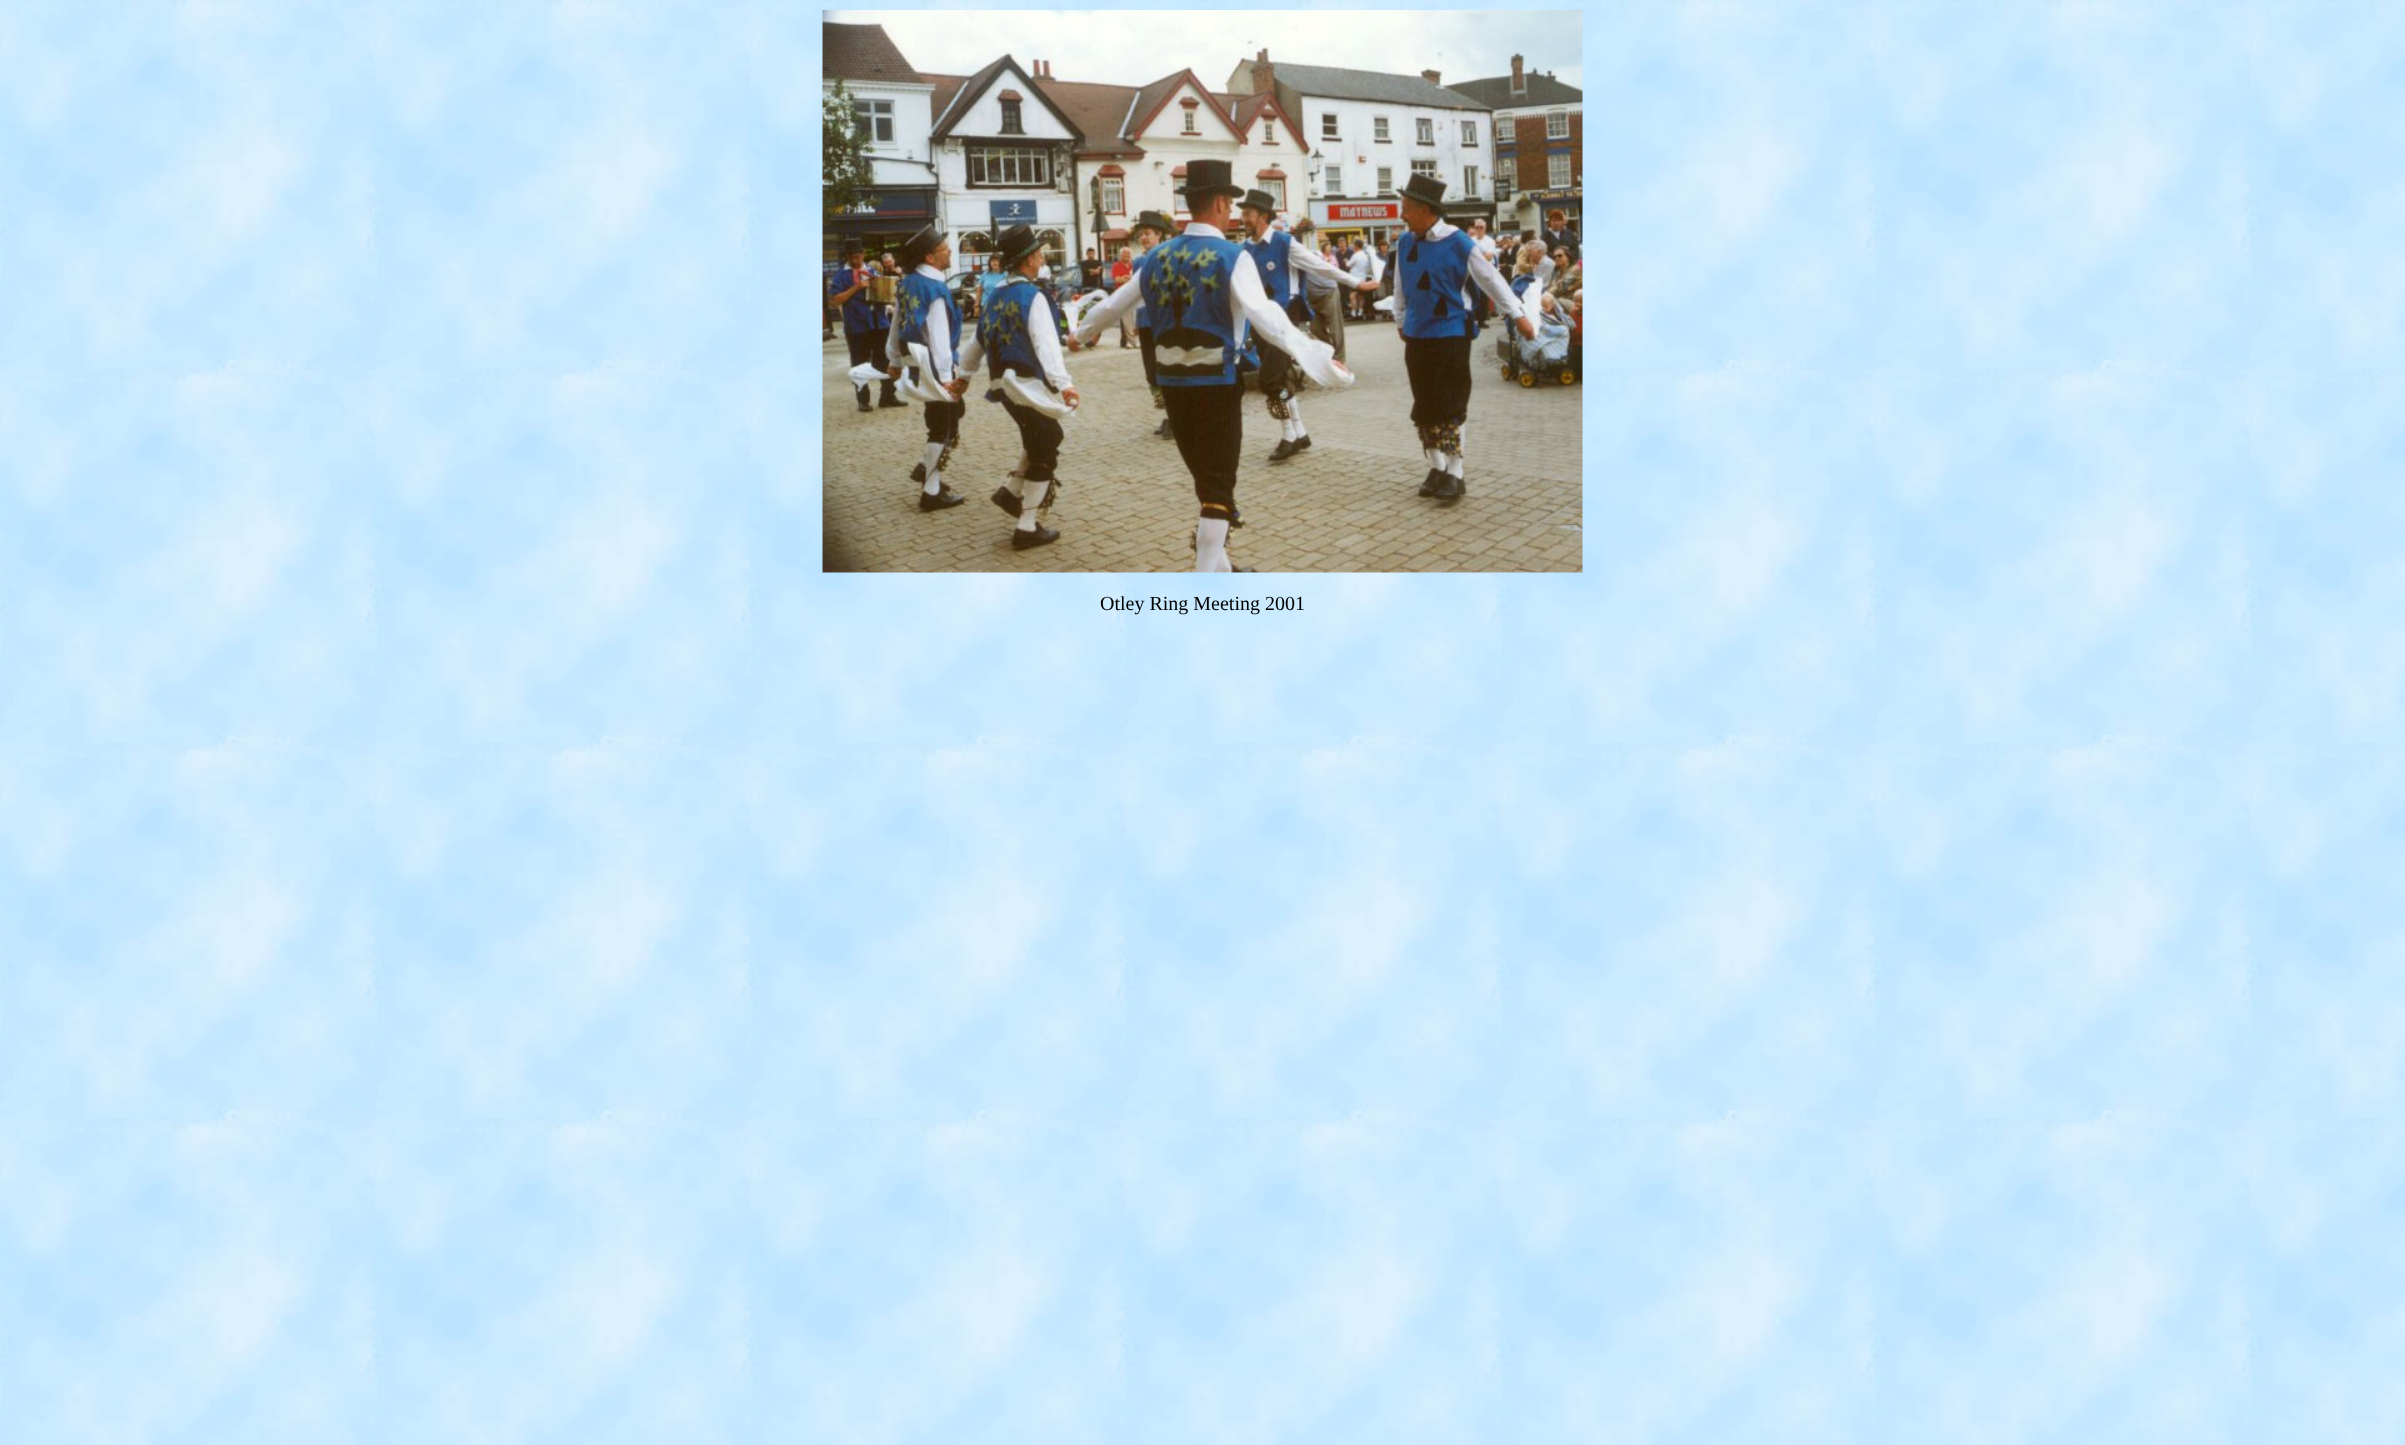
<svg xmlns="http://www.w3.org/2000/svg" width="2405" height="1445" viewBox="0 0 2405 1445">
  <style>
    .t1 { font: 20px Liberation Serif; fill: #000; }
  </style>
  <rect width="100%" height="100%" fill="#fff"/>
  <image x="0" y="0" width="2405" height="1445" href="images/1.png"/>
  <image x="822" y="10" width="761" height="563" href="images/2.png"/>
  <text x="1100" y="610" class="t1">Otley Ring Meeting 2001</text>
</svg>
